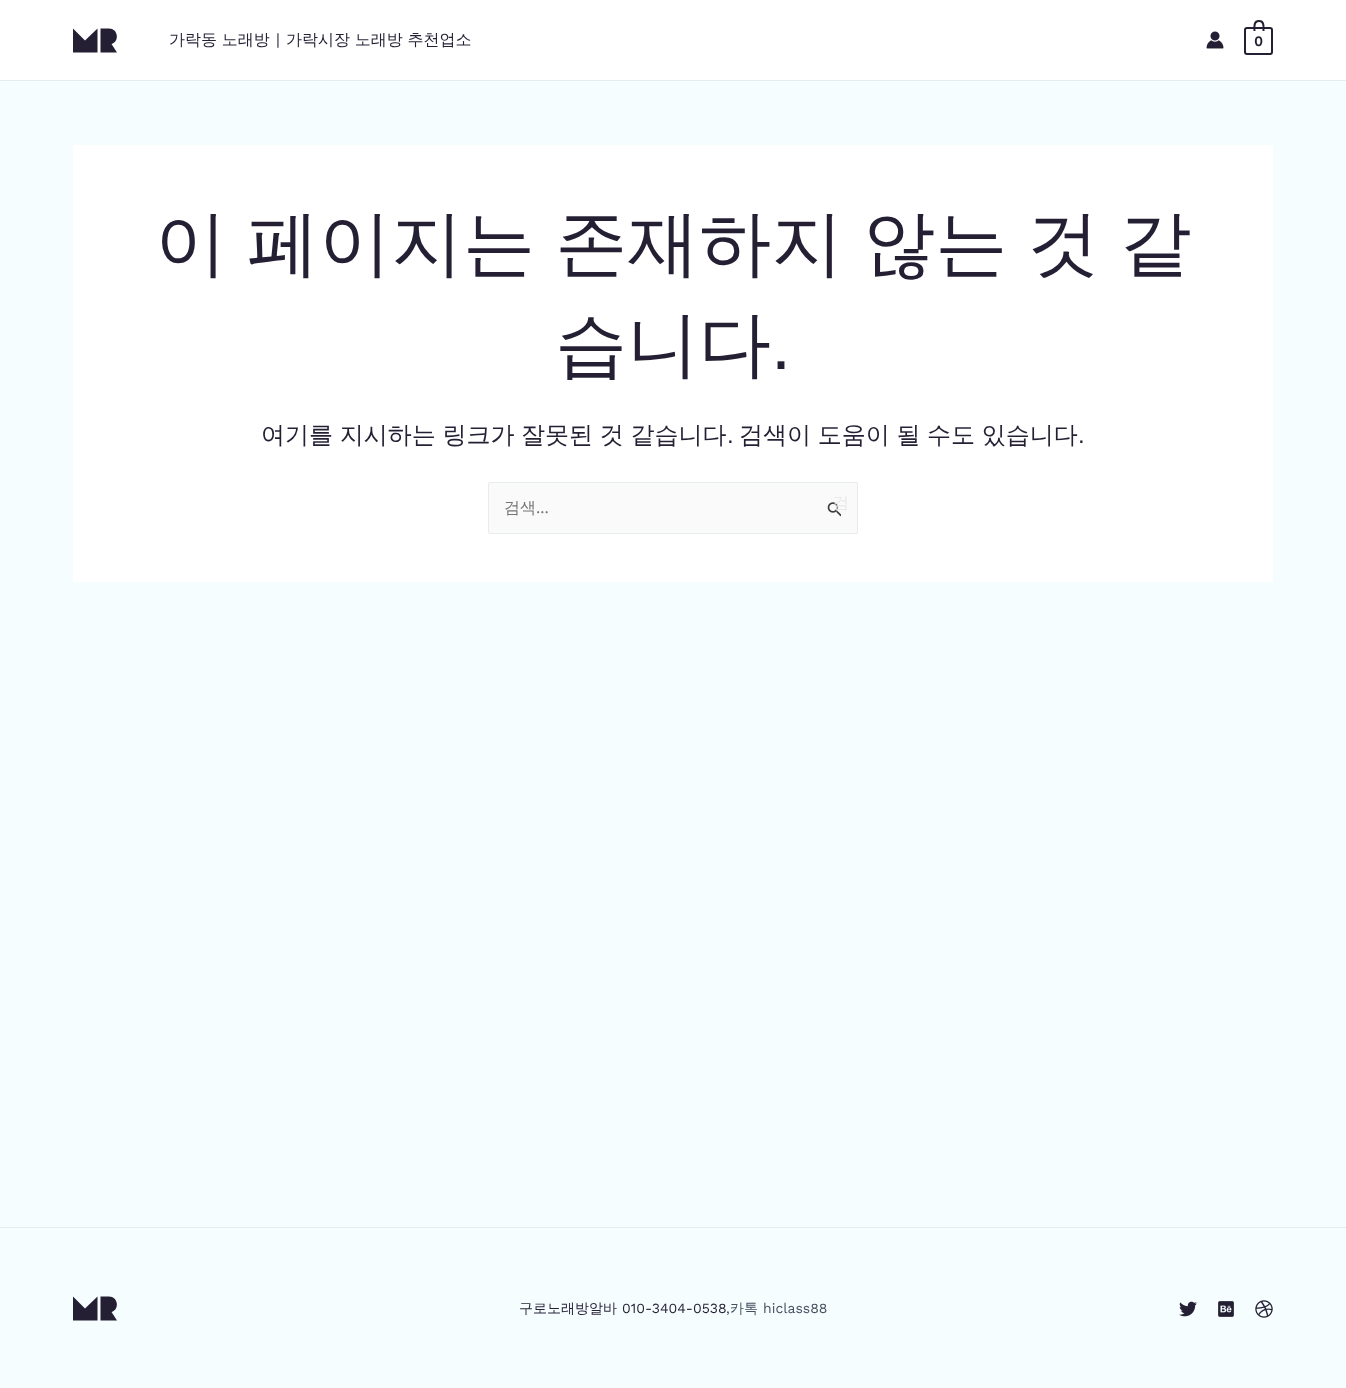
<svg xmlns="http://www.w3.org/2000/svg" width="1346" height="1388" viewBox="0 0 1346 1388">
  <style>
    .t1 { font: 500 16px WenQuanYi Zen Hei; fill: #241f33; }
    .t2 { font: 16px Work Sans; fill: #241f33; }
    .t3 { font: bold 14px Work Sans; fill: #241f33; }
    .t4 { font: 500 72px WenQuanYi Zen Hei; fill: #241f33; }
    .t5 { font: 72px Liberation Sans; fill: #241f33; }
    .t6 { font: 500 24px WenQuanYi Zen Hei; fill: #241f33; }
    .t7 { font: 24px Liberation Sans; fill: #241f33; }
    .t8 { font: 500 16px WenQuanYi Zen Hei; fill: #757575; }
    .t9 { font: 16px Work Sans; fill: #757575; }
    .t10 { font: 500 16px WenQuanYi Zen Hei; fill: #e9e9e9; }
    .t11 { font: 500 14px WenQuanYi Zen Hei; fill: #241f33; }
    .t12 { font: 14px Work Sans; fill: #241f33; }
    .t13 { font: 14px Work Sans; fill: #45505f; }
    .t14 { font: 500 14px WenQuanYi Zen Hei; fill: #45505f; }
  </style>
  <rect width="100%" height="100%" fill="#f5fdff"/>
  <rect x="0" y="0" width="1346" height="80" fill="#fff"/>
  <rect x="0" y="80" width="1346" height="1" fill="#e7ecee"/>
  <path d="M85 40.5L73 28.5V52.5H97.5V28.5ZM100.5 28.5H109C118 28.5 120 41.5 111.5 44L117 52.5H100.5Z" fill="#241f33"/>
  <text x="169" y="45" class="t1">가락동 노래방</text>
  <text x="276" y="45" class="t2">|</text>
  <text x="286" y="45" class="t1">가락시장 노래방 추천업소</text>
  <image x="1206" y="31" width="18" height="18" href="images/1.png"/>
  <rect x="1245" y="28" width="27" height="26" rx="2" fill="none" stroke="#241f33" stroke-width="2"/>
  <path d="M1259 20C1265.5 20 1264.5 26.5 1264.5 31H1253.5C1253.5 26.5 1252.5 20 1259 20ZM1259 22C1263.5 22 1262.5 28 1262.5 31H1255.5C1255.5 28 1254.5 22 1259 22Z" fill="#241f33" fill-rule="evenodd"/>
  <text x="1254" y="46" class="t3">0</text>
  <rect x="73" y="145" width="1200" height="437" fill="#fff"/>
  <text x="155" y="268" word-spacing="-1.5" class="t4">이 페이지는 존재하지 않는 것 같</text>
  <text x="555" y="369" class="t4">습니다</text>
  <text x="771" y="369" class="t5">.</text>
  <text x="261" y="443" word-spacing="-0.5" class="t6">여기를 지시하는 링크가 잘못된 것 같습니다</text>
  <text x="727" y="443" class="t7">.</text>
  <text x="739" y="443" word-spacing="-0.5" class="t6">검색이 도움이 될 수도 있습니다</text>
  <text x="1078" y="443" class="t7">.</text>
  <rect x="488.5" y="482.5" width="369" height="51" rx="1.5" fill="#fafafa" stroke="#e7ecee"/>
  <text x="504" y="513" class="t8">검색</text>
  <text x="536" y="513" class="t9">...</text>
  <image x="827" y="502" width="14" height="15" href="images/2.png"/>
  <text x="833" y="508" class="t10">검</text>
  <rect x="0" y="1227" width="1346" height="1" fill="#e7ecee"/>
  <path d="M85 1308.5L73 1296.5V1320.5H97.5V1296.5ZM100.5 1296.5H109C118 1296.5 120 1309.5 111.5 1312L117 1320.5H100.5Z" fill="#241f33"/>
  <text x="519" y="1313" class="t11">구로노래방알바</text>
  <text x="622" y="1313" class="t12">010-3404-0538</text>
  <text x="726" y="1313" class="t13">,</text>
  <text x="730" y="1313" class="t14">카톡</text>
  <text x="763" y="1313" class="t13">hiclass88</text>
  <image x="1179" y="1301" width="18" height="16" href="images/3.png"/>
  <image x="1218" y="1301" width="16" height="16" href="images/4.png"/>
  <image x="1255" y="1300" width="18" height="18" href="images/5.png"/>
</svg>
